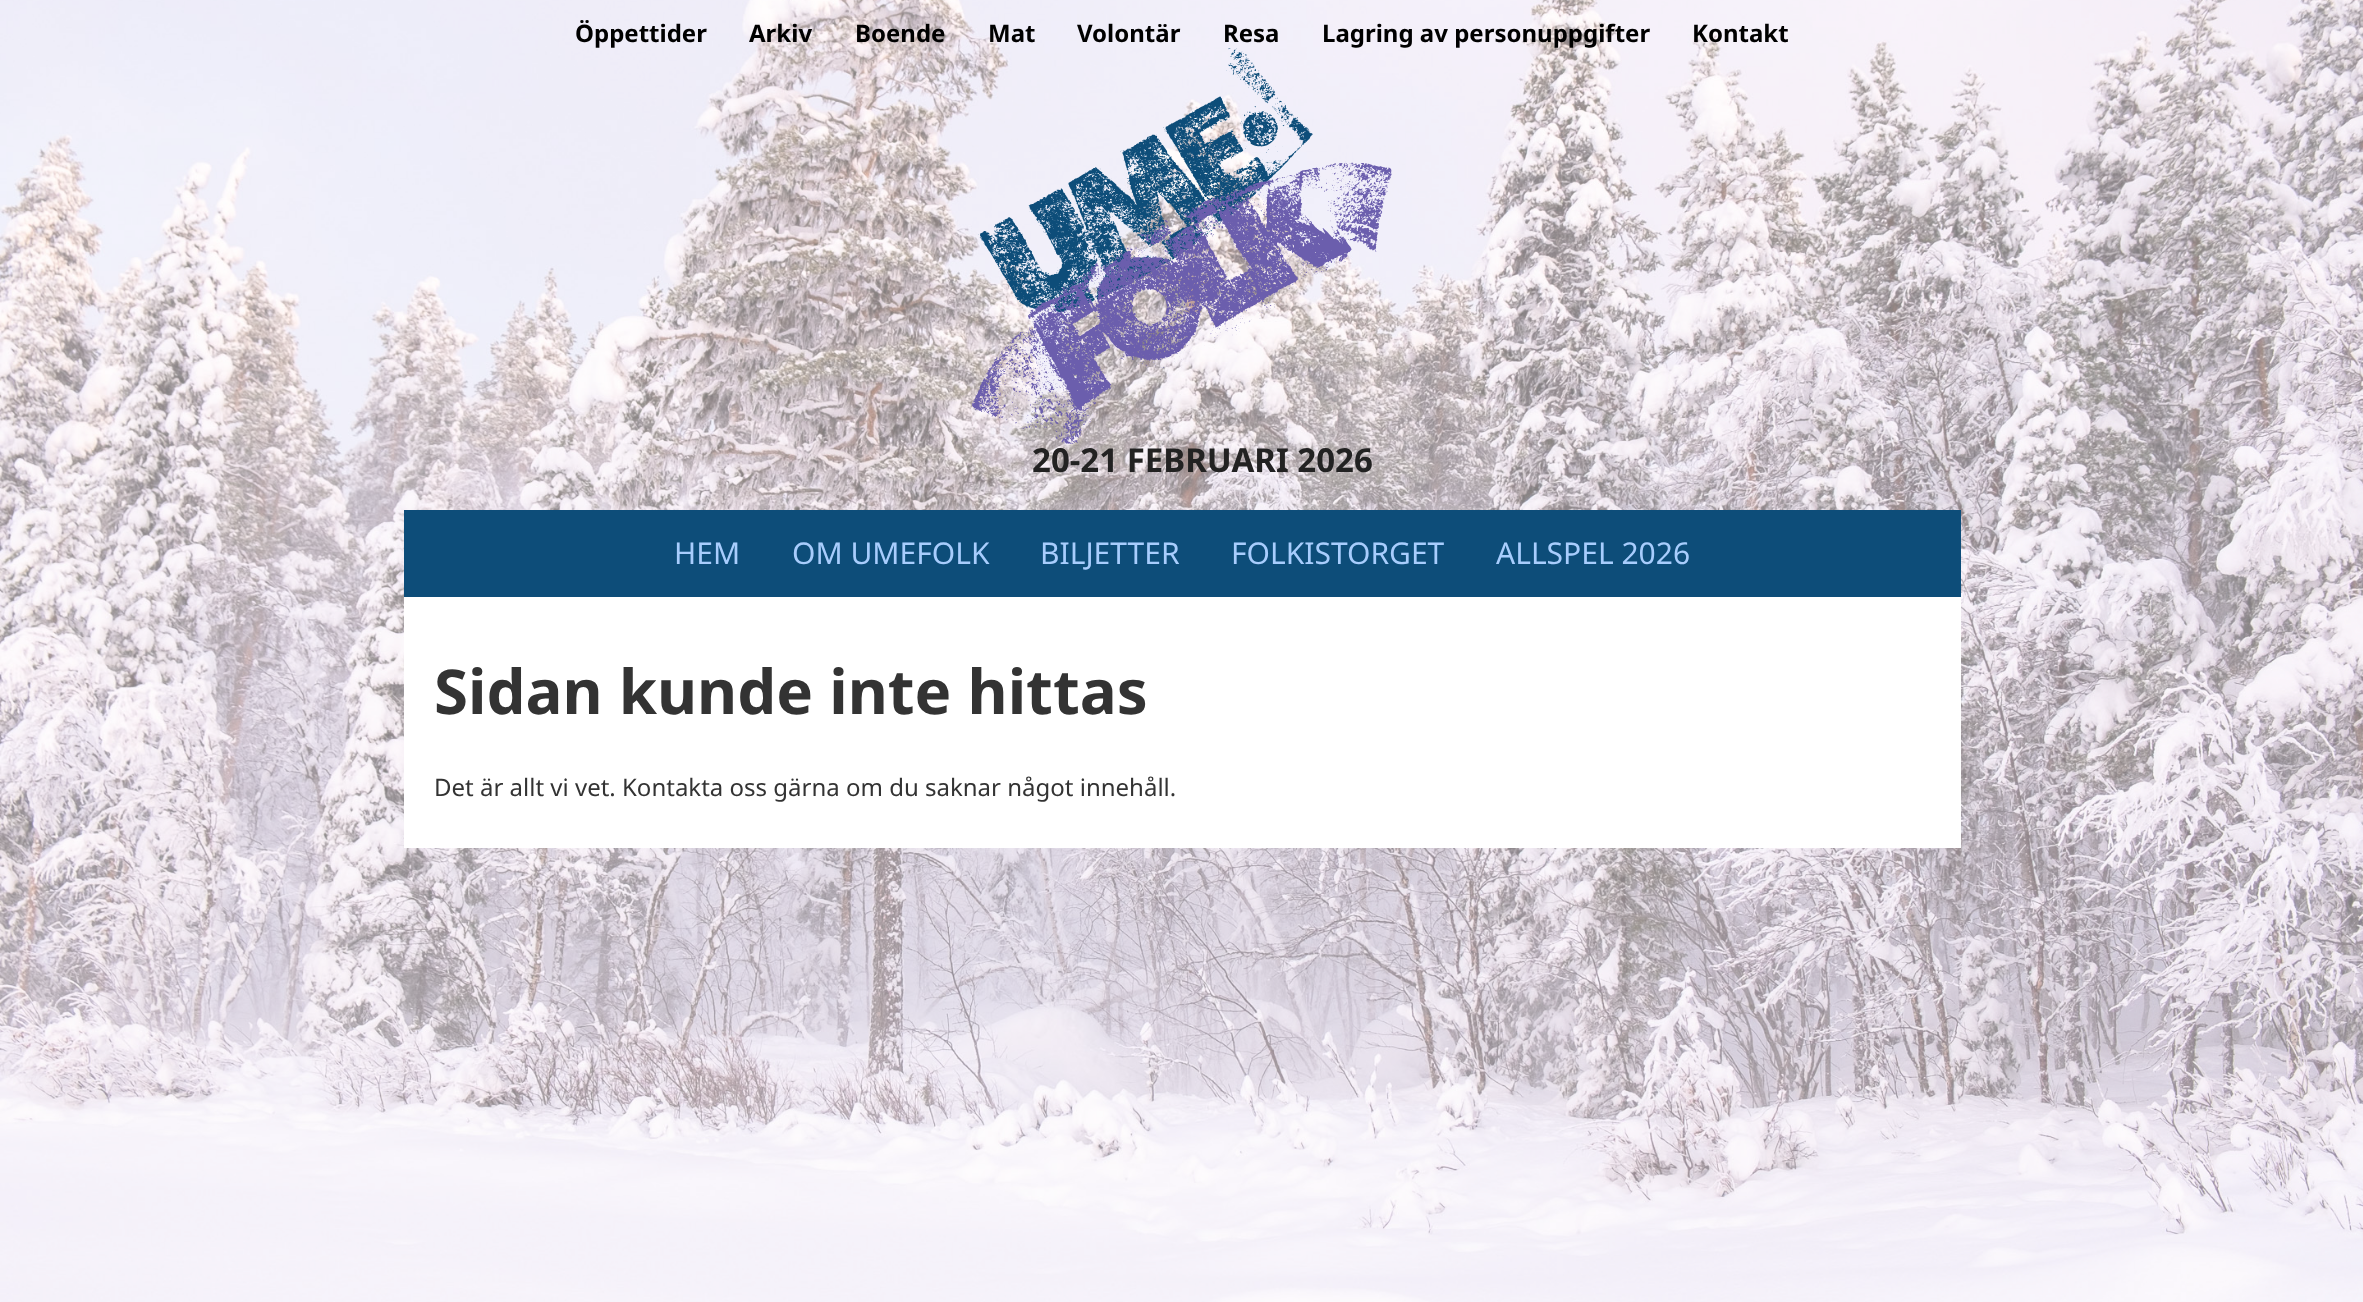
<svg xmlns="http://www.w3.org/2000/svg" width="2363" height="1302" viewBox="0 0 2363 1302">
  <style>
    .t1 { font: bold 24px Noto Sans; fill: #000; }
    .t2 { font: bold 33px Noto Sans; fill: #222; }
    .t3 { font: 30px Noto Sans; fill: #a8cdfd; }
    .t4 { font: bold 61.75px Noto Sans; fill: #333; }
    .t5 { font: 24px Noto Sans; fill: #333; }
  </style>
  <rect width="100%" height="100%" fill="#fffffd"/>
  <image x="0" y="0" width="2363" height="1302" href="images/1.png"/>
  <text x="575" y="42" class="t1">Öppettider</text>
  <text x="749" y="42" class="t1">Arkiv</text>
  <text x="855" y="42" class="t1">Boende</text>
  <text x="988" y="42" class="t1">Mat</text>
  <text x="1077" y="42" class="t1">Volontär</text>
  <text x="1223" y="42" class="t1">Resa</text>
  <text x="1322" y="42" class="t1">Lagring av personuppgifter</text>
  <text x="1692" y="42" class="t1">Kontakt</text>
  <image x="972" y="48" width="420" height="396" href="images/2.png"/>
  <text x="1032" y="472" class="t2">20-21 FEBRUARI 2026</text>
  <rect x="404" y="510" width="1557" height="87" fill="#0d4d79"/>
  <text x="674" y="564" class="t3">HEM</text>
  <text x="792" y="564" class="t3">OM UMEFOLK</text>
  <text x="1040" y="564" class="t3">BILJETTER</text>
  <text x="1231" y="564" class="t3">FOLKISTORGET</text>
  <text x="1496" y="564" class="t3">ALLSPEL 2026</text>
  <rect x="404" y="597" width="1557" height="251" fill="#fff"/>
  <text x="434" y="714" class="t4">Sidan kunde inte hittas</text>
  <text x="434" y="796" class="t5">Det är allt vi vet. Kontakta oss gärna om du saknar något innehåll.</text>
</svg>
